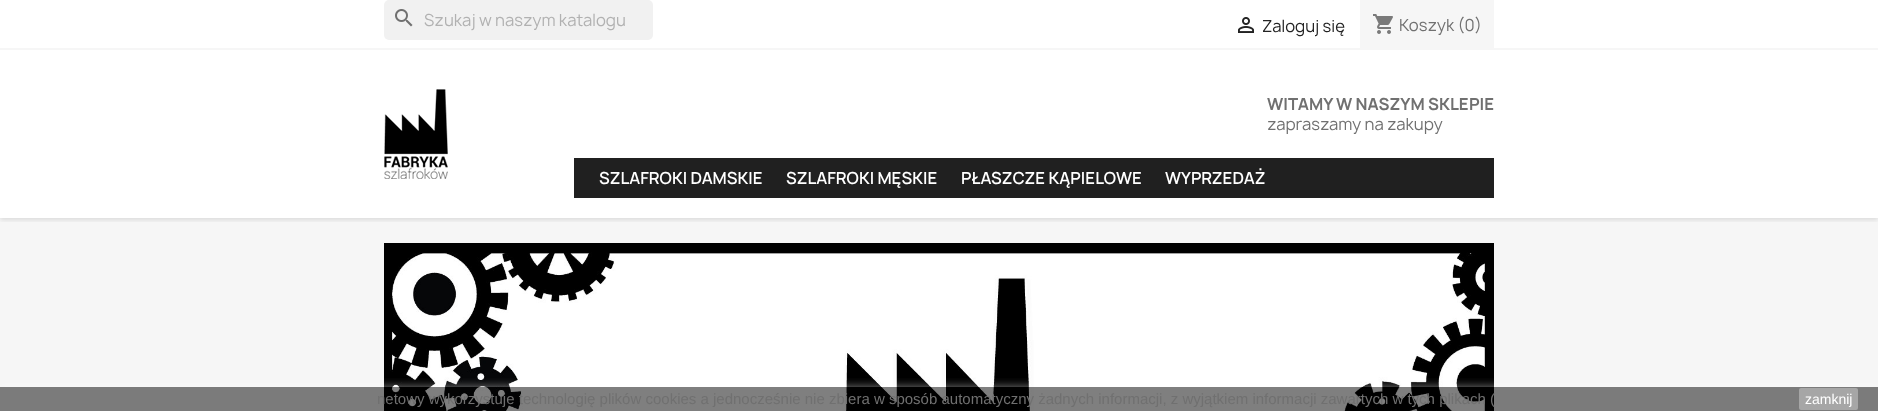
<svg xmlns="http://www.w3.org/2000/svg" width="1878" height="411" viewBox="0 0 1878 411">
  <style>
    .t1 { font: 16px Manrope; fill: #b1b1b1; }
    .t2 { font: 16px Manrope; fill: #232323; }
    .t3 { font: 16px Manrope; fill: #707070; }
    .t4 { font: bold 16px Manrope; fill: #707070; }
    .t5 { font: 600 16px Manrope; fill: #fff; }
    .t6 { font: 15px Liberation Sans; fill: #707070; }
    .t7 { font: 14px Liberation Sans; fill: #fff; }
  </style>
  <defs>
    <clipPath id="clip1"><rect x="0" y="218" width="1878" height="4"/></clipPath>
    <clipPath id="clip2"><rect x="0" y="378" width="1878" height="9"/></clipPath>
  </defs>
  <rect width="100%" height="100%" fill="#fff"/>
  <rect x="0" y="218" width="1878" height="193" fill="#f6f6f6"/>
  <g clip-path="url(#clip1)">
    <rect x="0" y="2" width="1878" height="218" fill="#0000001c" filter="blur(2.5px)"/>
  </g>
  <rect x="0" y="48" width="1878" height="2" fill="#f6f6f6"/>
  <rect x="384" y="0" width="269" height="40" rx="5" fill="#f1f1f1"/>
  <image x="395" y="9" width="18" height="18" href="images/1.png"/>
  <text x="424" y="26" class="t1">Szukaj w naszym katalogu</text>
  <image x="1238" y="17" width="16" height="16" href="images/2.png"/>
  <text x="1262" y="32" class="t2">Zaloguj się</text>
  <rect x="1360" y="0" width="134" height="48" fill="#f6f6f6"/>
  <image x="1373" y="14" width="20" height="20" href="images/3.png"/>
  <text x="1399" y="31" class="t3">Koszyk (0)</text>
  <image x="384" y="89" width="64" height="90" href="images/4.png"/>
  <text x="1267" y="110" class="t4">WITAMY W NASZYM SKLEPIE</text>
  <text x="1267" y="130" class="t3">zapraszamy na zakupy</text>
  <rect x="574" y="158" width="920" height="40" fill="#202020"/>
  <text x="599" y="184" class="t5">SZLAFROKI DAMSKIE</text>
  <text x="786" y="184" class="t5">SZLAFROKI MĘSKIE</text>
  <text x="961" y="184" class="t5">PŁASZCZE KĄPIELOWE</text>
  <text x="1165" y="184" class="t5">WYPRZEDAŻ</text>
  <image x="384" y="243" width="1110" height="168" href="images/5.png"/>
  <g clip-path="url(#clip2)">
    <rect x="0" y="387" width="1878" height="24" fill="#ffffff80" filter="blur(5px)"/>
  </g>
  <rect x="0" y="387" width="1878" height="24" fill="#00000080"/>
  <text x="377" y="404" class="t6">netowy wykorzystuje technologię plików cookies a jednocześnie nie zbiera w sposób automatyczny żadnych informacji, z wyjątkiem informacji zawartych w tych plikach (</text>
  <rect x="1799" y="388" width="59" height="22" rx="2" fill="#a6a6a6"/>
  <text x="1805" y="404" class="t7">zamknij</text>
</svg>
